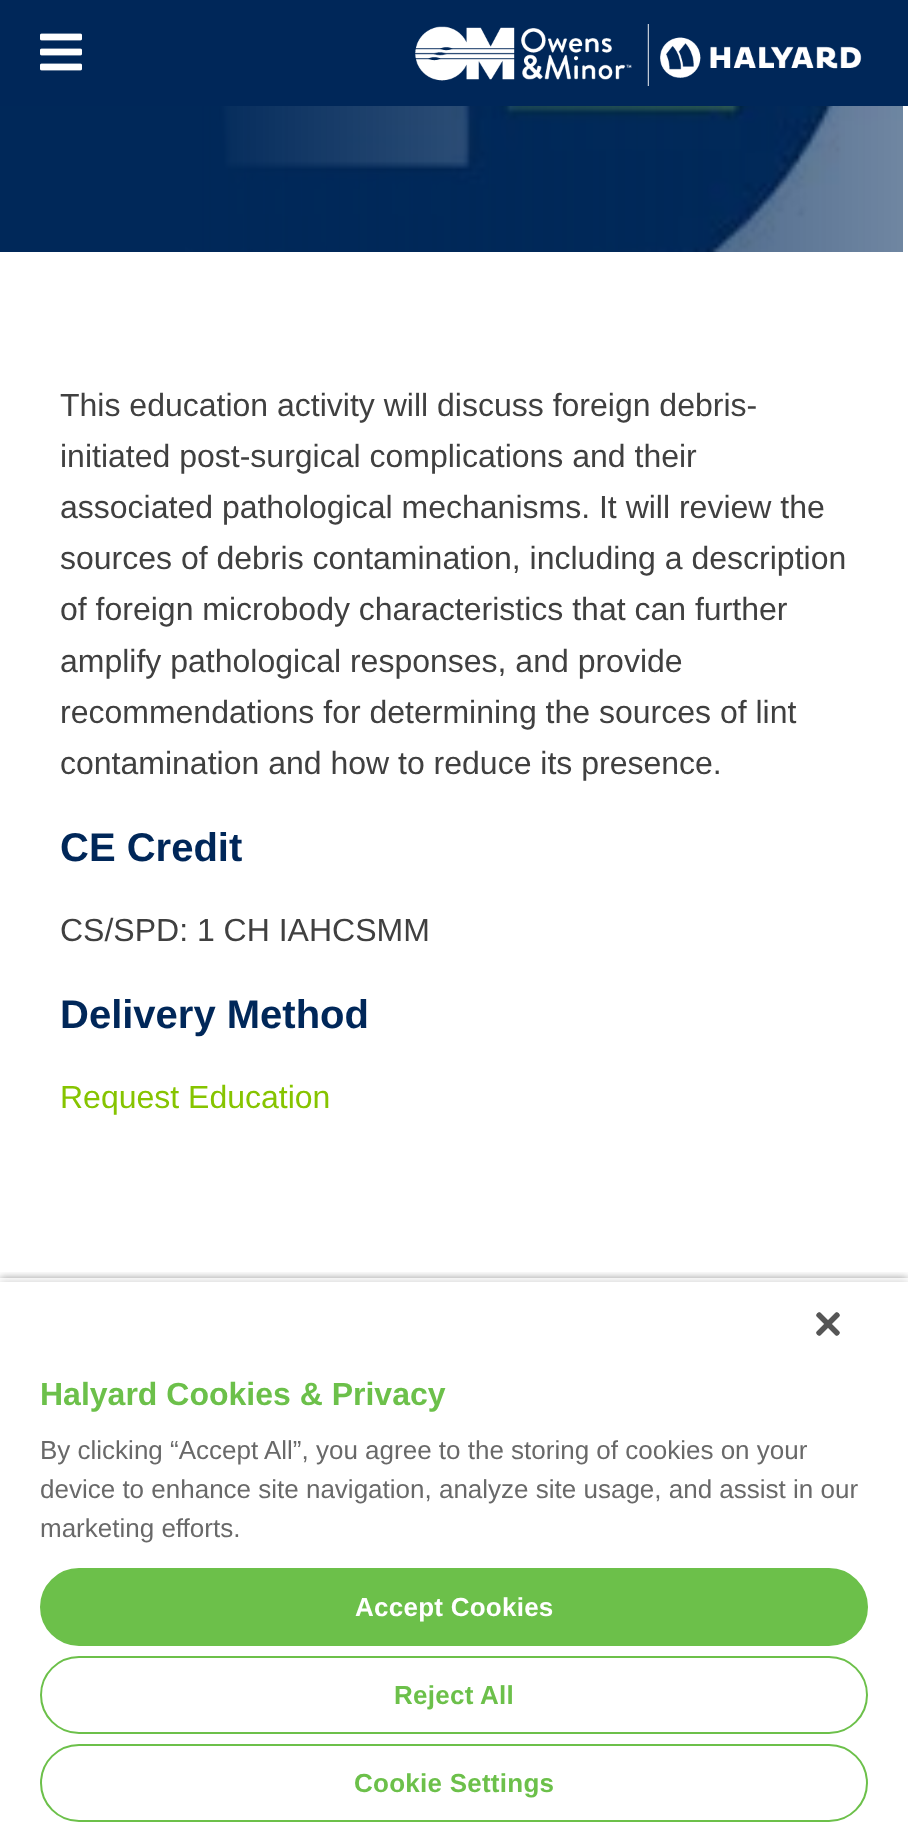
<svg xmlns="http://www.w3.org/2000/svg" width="908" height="1832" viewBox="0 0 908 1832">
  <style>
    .t1 { font: 32px Liberation Sans; fill: #404040; }
    .t2 { font: bold 40px Liberation Sans; fill: #002759; }
    .t3 { font: 32px Liberation Sans; fill: #86c400; }
    .t4 { font: bold 32px Liberation Sans; fill: #6cc04a; }
    .t5 { font: 26px Liberation Sans; fill: #696969; }
    .t6 { font: bold 26px Liberation Sans; letter-spacing: 0.25px; fill: #fff; }
    .t7 { font: bold 26px Liberation Sans; letter-spacing: 0.25px; fill: #6cc04a; }
  </style>
  <defs>
    <clipPath id="clip1"><rect x="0" y="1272" width="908" height="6"/></clipPath>
  </defs>
  <rect width="100%" height="100%" fill="#fff"/>
  <rect x="0" y="0" width="908" height="106" fill="#002759"/>
  <image x="40" y="33" width="42" height="38" href="images/1.png"/>
  <image x="415" y="24" width="447" height="62" href="images/2.png"/>
  <image x="0" y="106" width="903" height="146" href="images/3.png"/>
  <text x="60" y="416" class="t1">This education activity will discuss foreign debris-</text>
  <text x="60" y="467" class="t1">initiated post-surgical complications and their</text>
  <text x="60" y="518" class="t1">associated pathological mechanisms. It will review the</text>
  <text x="60" y="569" class="t1">sources of debris contamination, including a description</text>
  <text x="60" y="620" class="t1">of foreign microbody characteristics that can further</text>
  <text x="60" y="672" class="t1">amplify pathological responses, and provide</text>
  <text x="60" y="723" class="t1">recommendations for determining the sources of lint</text>
  <text x="60" y="774" class="t1">contamination and how to reduce its presence.</text>
  <text x="60" y="861" class="t2">CE Credit</text>
  <text x="60" y="941" class="t1">CS/SPD: 1 CH IAHCSMM</text>
  <text x="60" y="1028" class="t2">Delivery Method</text>
  <text x="60" y="1108" class="t3">Request Education</text>
  <g clip-path="url(#clip1)">
    <rect x="0" y="1278" width="908" height="554" fill="#00000059" filter="blur(4px)"/>
  </g>
  <rect x="0" y="1282" width="908" height="550" fill="#00000033" filter="blur(4px)"/>
  <rect x="0" y="1282" width="908" height="550" fill="#fff"/>
  <image x="816" y="1312" width="24" height="24" href="images/4.png"/>
  <text x="40" y="1405" class="t4">Halyard Cookies &amp; Privacy</text>
  <text x="40" y="1459" class="t5">By clicking “Accept All”, you agree to the storing of cookies on your</text>
  <text x="40" y="1498" class="t5">device to enhance site navigation, analyze site usage, and assist in our</text>
  <text x="40" y="1537" class="t5">marketing efforts.</text>
  <rect x="41" y="1569" width="826" height="76" rx="38" fill="#6cc04a" stroke="#6cc04a" stroke-width="2"/>
  <text x="355" y="1616" class="t6">Accept Cookies</text>
  <rect x="41" y="1657" width="826" height="76" rx="38" fill="none" stroke="#6cc04a" stroke-width="2"/>
  <text x="394" y="1704" class="t7">Reject All</text>
  <rect x="41" y="1745" width="826" height="76" rx="38" fill="none" stroke="#6cc04a" stroke-width="2"/>
  <text x="354" y="1792" class="t7">Cookie Settings</text>
</svg>
